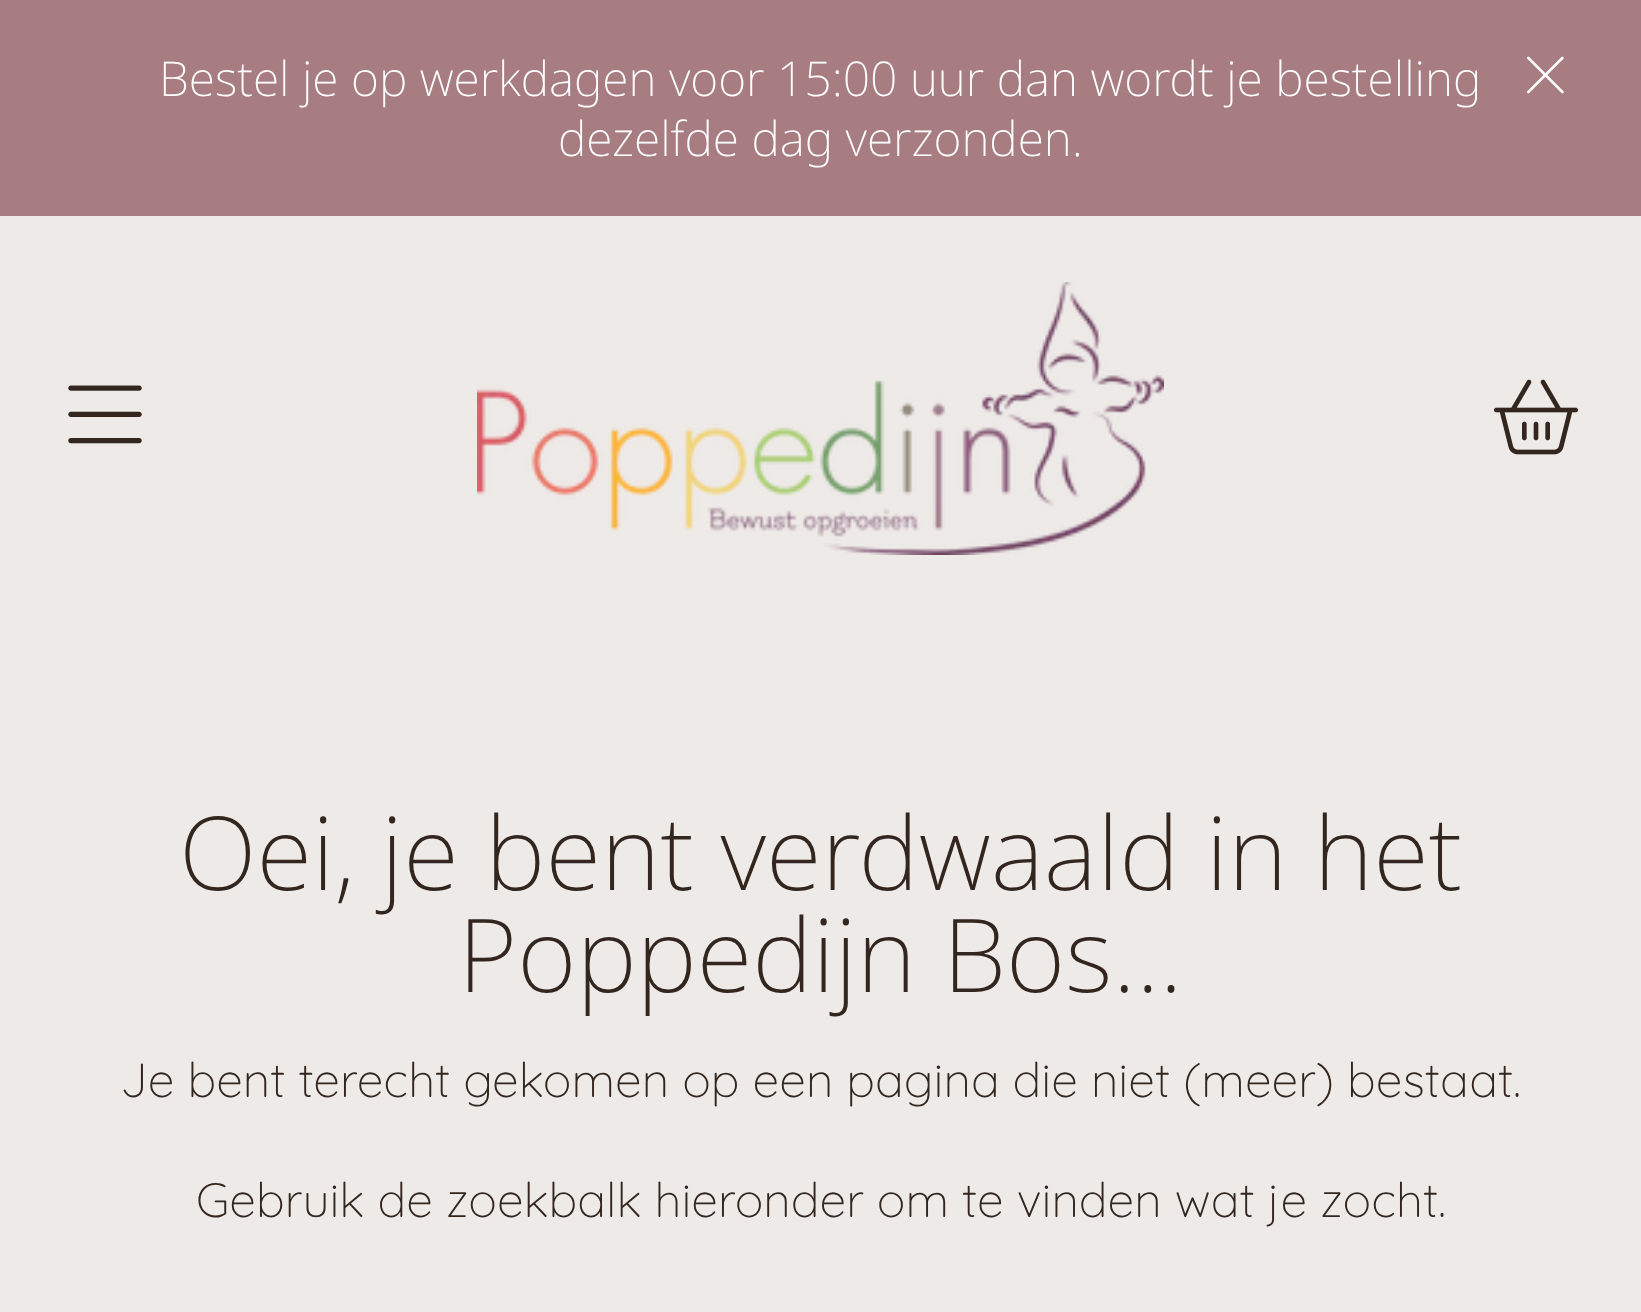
<svg xmlns="http://www.w3.org/2000/svg" width="1641" height="1312" viewBox="0 0 1641 1312">
  <style>
    .t1 { font: 200 48px Noto Sans; fill: #fff; }
    .t2 { font: 200 102px Noto Sans; fill: #32261e; }
    .t3 { font: 300 48px Quicksand; fill: #32261e; }
  </style>
  <rect width="100%" height="100%" fill="#eeeae8"/>
  <rect x="0" y="0" width="1641" height="216" fill="#a77d82"/>
  <text x="159" y="96" class="t1">Bestel je op werkdagen voor 15:00 uur dan wordt je bestelling</text>
  <text x="558" y="156" class="t1">dezelfde dag verzonden.</text>
  <image x="1527" y="56" width="37" height="38" href="images/1.png"/>
  <image x="68" y="385" width="74" height="59" href="images/2.png"/>
  <image x="477" y="282" width="687" height="273" href="images/3.png"/>
  <image x="1494" y="379" width="84" height="76" href="images/4.png"/>
  <text x="179" y="890" class="t2">Oei, je bent verdwaald in het</text>
  <text x="458" y="992" class="t2">Poppedijn Bos...</text>
  <text x="120" y="1097" class="t3">Je bent terecht gekomen op een pagina die niet (meer) bestaat.</text>
  <text x="196" y="1217" class="t3">Gebruik de zoekbalk hieronder om te vinden wat je zocht.</text>
</svg>
